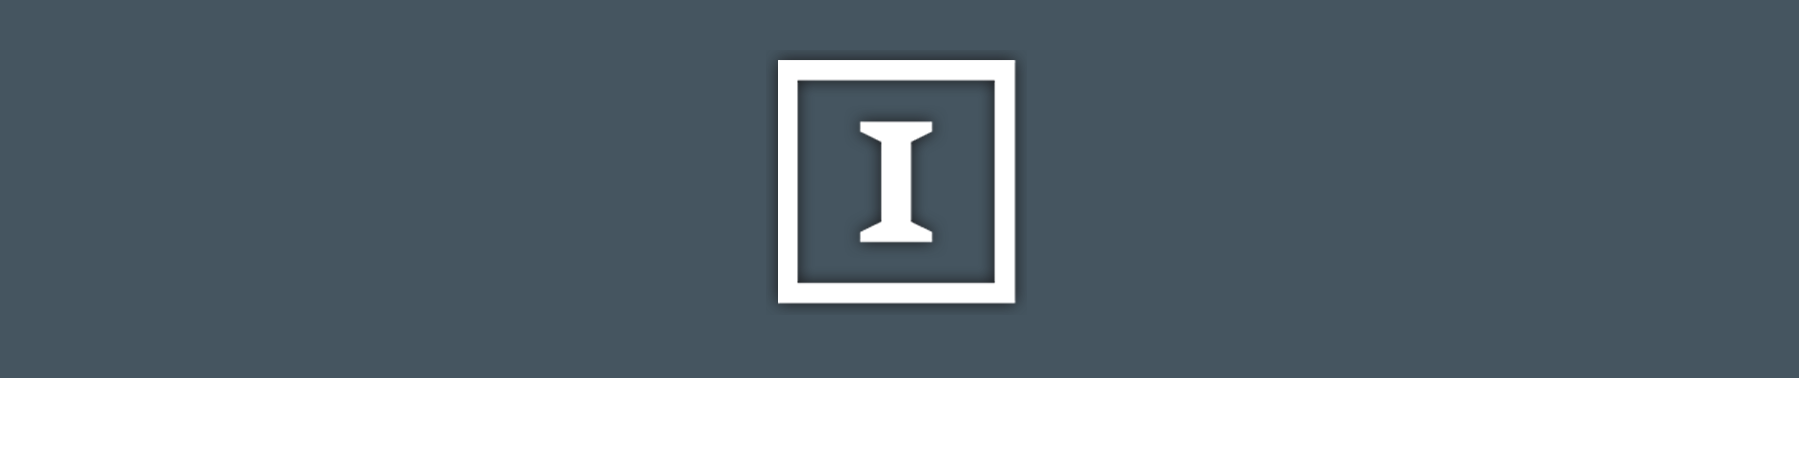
<svg xmlns="http://www.w3.org/2000/svg" width="1799" height="453" viewBox="0 0 1799 453">
  <rect width="100%" height="100%" fill="#fff"/>
  <rect x="0" y="0" width="1799" height="378" fill="#455560"/>
  <image x="766" y="50" width="261" height="265" href="images/1.png"/>
</svg>
